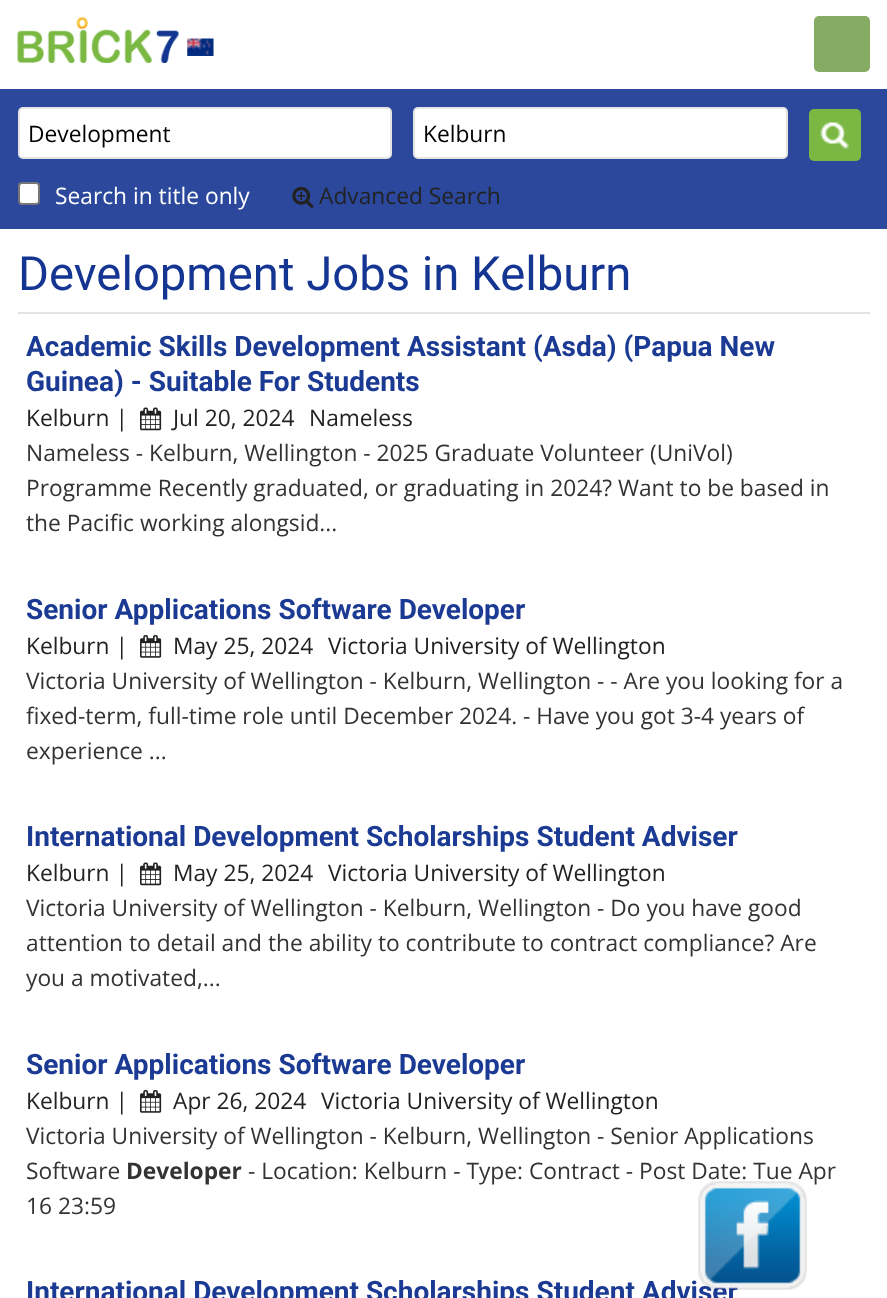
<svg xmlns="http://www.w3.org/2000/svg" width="887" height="1298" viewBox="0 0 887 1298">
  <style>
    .t1 { font: 22.75px Open Sans; fill: #000; }
    .t2 { font: 22.75px Open Sans; fill: #fff; }
    .t3 { font: 22.75px Open Sans; fill: #222; }
    .t4 { font: 47.25px Roboto; fill: #153593; }
    .t5 { font: bold 28px Roboto; fill: #1b3a93; }
    .t6 { font: 22.75px Open Sans; fill: #333; }
    .t7 { font: bold 22.75px Open Sans; fill: #333; }
  </style>
  <rect width="100%" height="100%" fill="#fff"/>
  <rect x="814" y="16" width="56" height="56" rx="5" fill="#85ac62"/>
  <image x="17" y="17" width="162" height="46" href="images/1.png"/>
  <image x="187" y="38" width="27" height="18" href="images/2.png"/>
  <rect x="0" y="89" width="887" height="140" fill="#2b489c"/>
  <rect x="19" y="108" width="372" height="50" rx="4" fill="#fff" stroke="#e4e4e4" stroke-width="2"/>
  <text x="28" y="142" class="t1">Development</text>
  <rect x="414" y="108" width="373" height="50" rx="4" fill="#fff" stroke="#e4e4e4" stroke-width="2"/>
  <text x="423" y="142" class="t1">Kelburn</text>
  <rect x="809" y="109" width="52" height="52" rx="5" fill="#7ab843"/>
  <image x="820" y="122" width="29" height="27" href="images/3.png"/>
  <rect x="19" y="183" width="20" height="21" rx="3" fill="#fff" stroke="#767676" stroke-width="2"/>
  <text x="55" y="204" class="t2">Search in title only</text>
  <image x="292" y="186" width="22" height="22" href="images/4.png"/>
  <text x="319" y="204" class="t3">Advanced Search</text>
  <rect x="18" y="312" width="852" height="2" fill="#e4e4e4"/>
  <text x="18" y="290" class="t4">Development Jobs in Kelburn</text>
  <text x="26" y="356" class="t5">Academic Skills Development Assistant (Asda) (Papua New</text>
  <text x="26" y="391" class="t5">Guinea) - Suitable For Students</text>
  <text x="26" y="426" class="t3">Kelburn |</text>
  <image x="140" y="407" width="22" height="24" href="images/5.png"/>
  <text x="173" y="426" class="t3">Jul 20, 2024</text>
  <text x="309" y="426" class="t3">Nameless</text>
  <text x="26" y="461" class="t6">Nameless - Kelburn, Wellington - 2025 Graduate Volunteer (UniVol)</text>
  <text x="26" y="496" class="t6">Programme Recently graduated, or graduating in 2024? Want to be based in</text>
  <text x="26" y="531" class="t6">the Pacific working alongsid...</text>
  <text x="26" y="619" class="t5">Senior Applications Software Developer</text>
  <text x="26" y="654" class="t3">Kelburn |</text>
  <image x="140" y="635" width="22" height="23" href="images/6.png"/>
  <text x="173" y="654" class="t3">May 25, 2024</text>
  <text x="328" y="654" class="t3">Victoria University of Wellington</text>
  <text x="26" y="689" class="t6">Victoria University of Wellington - Kelburn, Wellington - - Are you looking for a</text>
  <text x="26" y="724" class="t6">fixed-term, full-time role until December 2024. - Have you got 3-4 years of</text>
  <text x="26" y="759" class="t6">experience ...</text>
  <text x="26" y="846" class="t5">International Development Scholarships Student Adviser</text>
  <text x="26" y="881" class="t3">Kelburn |</text>
  <image x="140" y="862" width="22" height="24" href="images/5.png"/>
  <text x="173" y="881" class="t3">May 25, 2024</text>
  <text x="328" y="881" class="t3">Victoria University of Wellington</text>
  <text x="26" y="916" class="t6">Victoria University of Wellington - Kelburn, Wellington - Do you have good</text>
  <text x="26" y="951" class="t6">attention to detail and the ability to contribute to contract compliance? Are</text>
  <text x="26" y="986" class="t6">you a motivated,...</text>
  <text x="26" y="1074" class="t5">Senior Applications Software Developer</text>
  <text x="26" y="1109" class="t3">Kelburn |</text>
  <image x="140" y="1090" width="22" height="23" href="images/6.png"/>
  <text x="173" y="1109" class="t3">Apr 26, 2024</text>
  <text x="321" y="1109" class="t3">Victoria University of Wellington</text>
  <text x="26" y="1144" class="t6">Victoria University of Wellington - Kelburn, Wellington - Senior Applications</text>
  <text x="26" y="1179" class="t6">Software</text>
  <text x="126" y="1179" class="t7">Developer</text>
  <text x="248" y="1179" class="t6">- Location: Kelburn - Type: Contract - Post Date: Tue Apr</text>
  <text x="26" y="1214" class="t6">16 23:59</text>
  <text x="26" y="1301" class="t5">International Development Scholarships Student Adviser</text>
  <image x="698" y="1181" width="109" height="109" href="images/7.png"/>
</svg>
